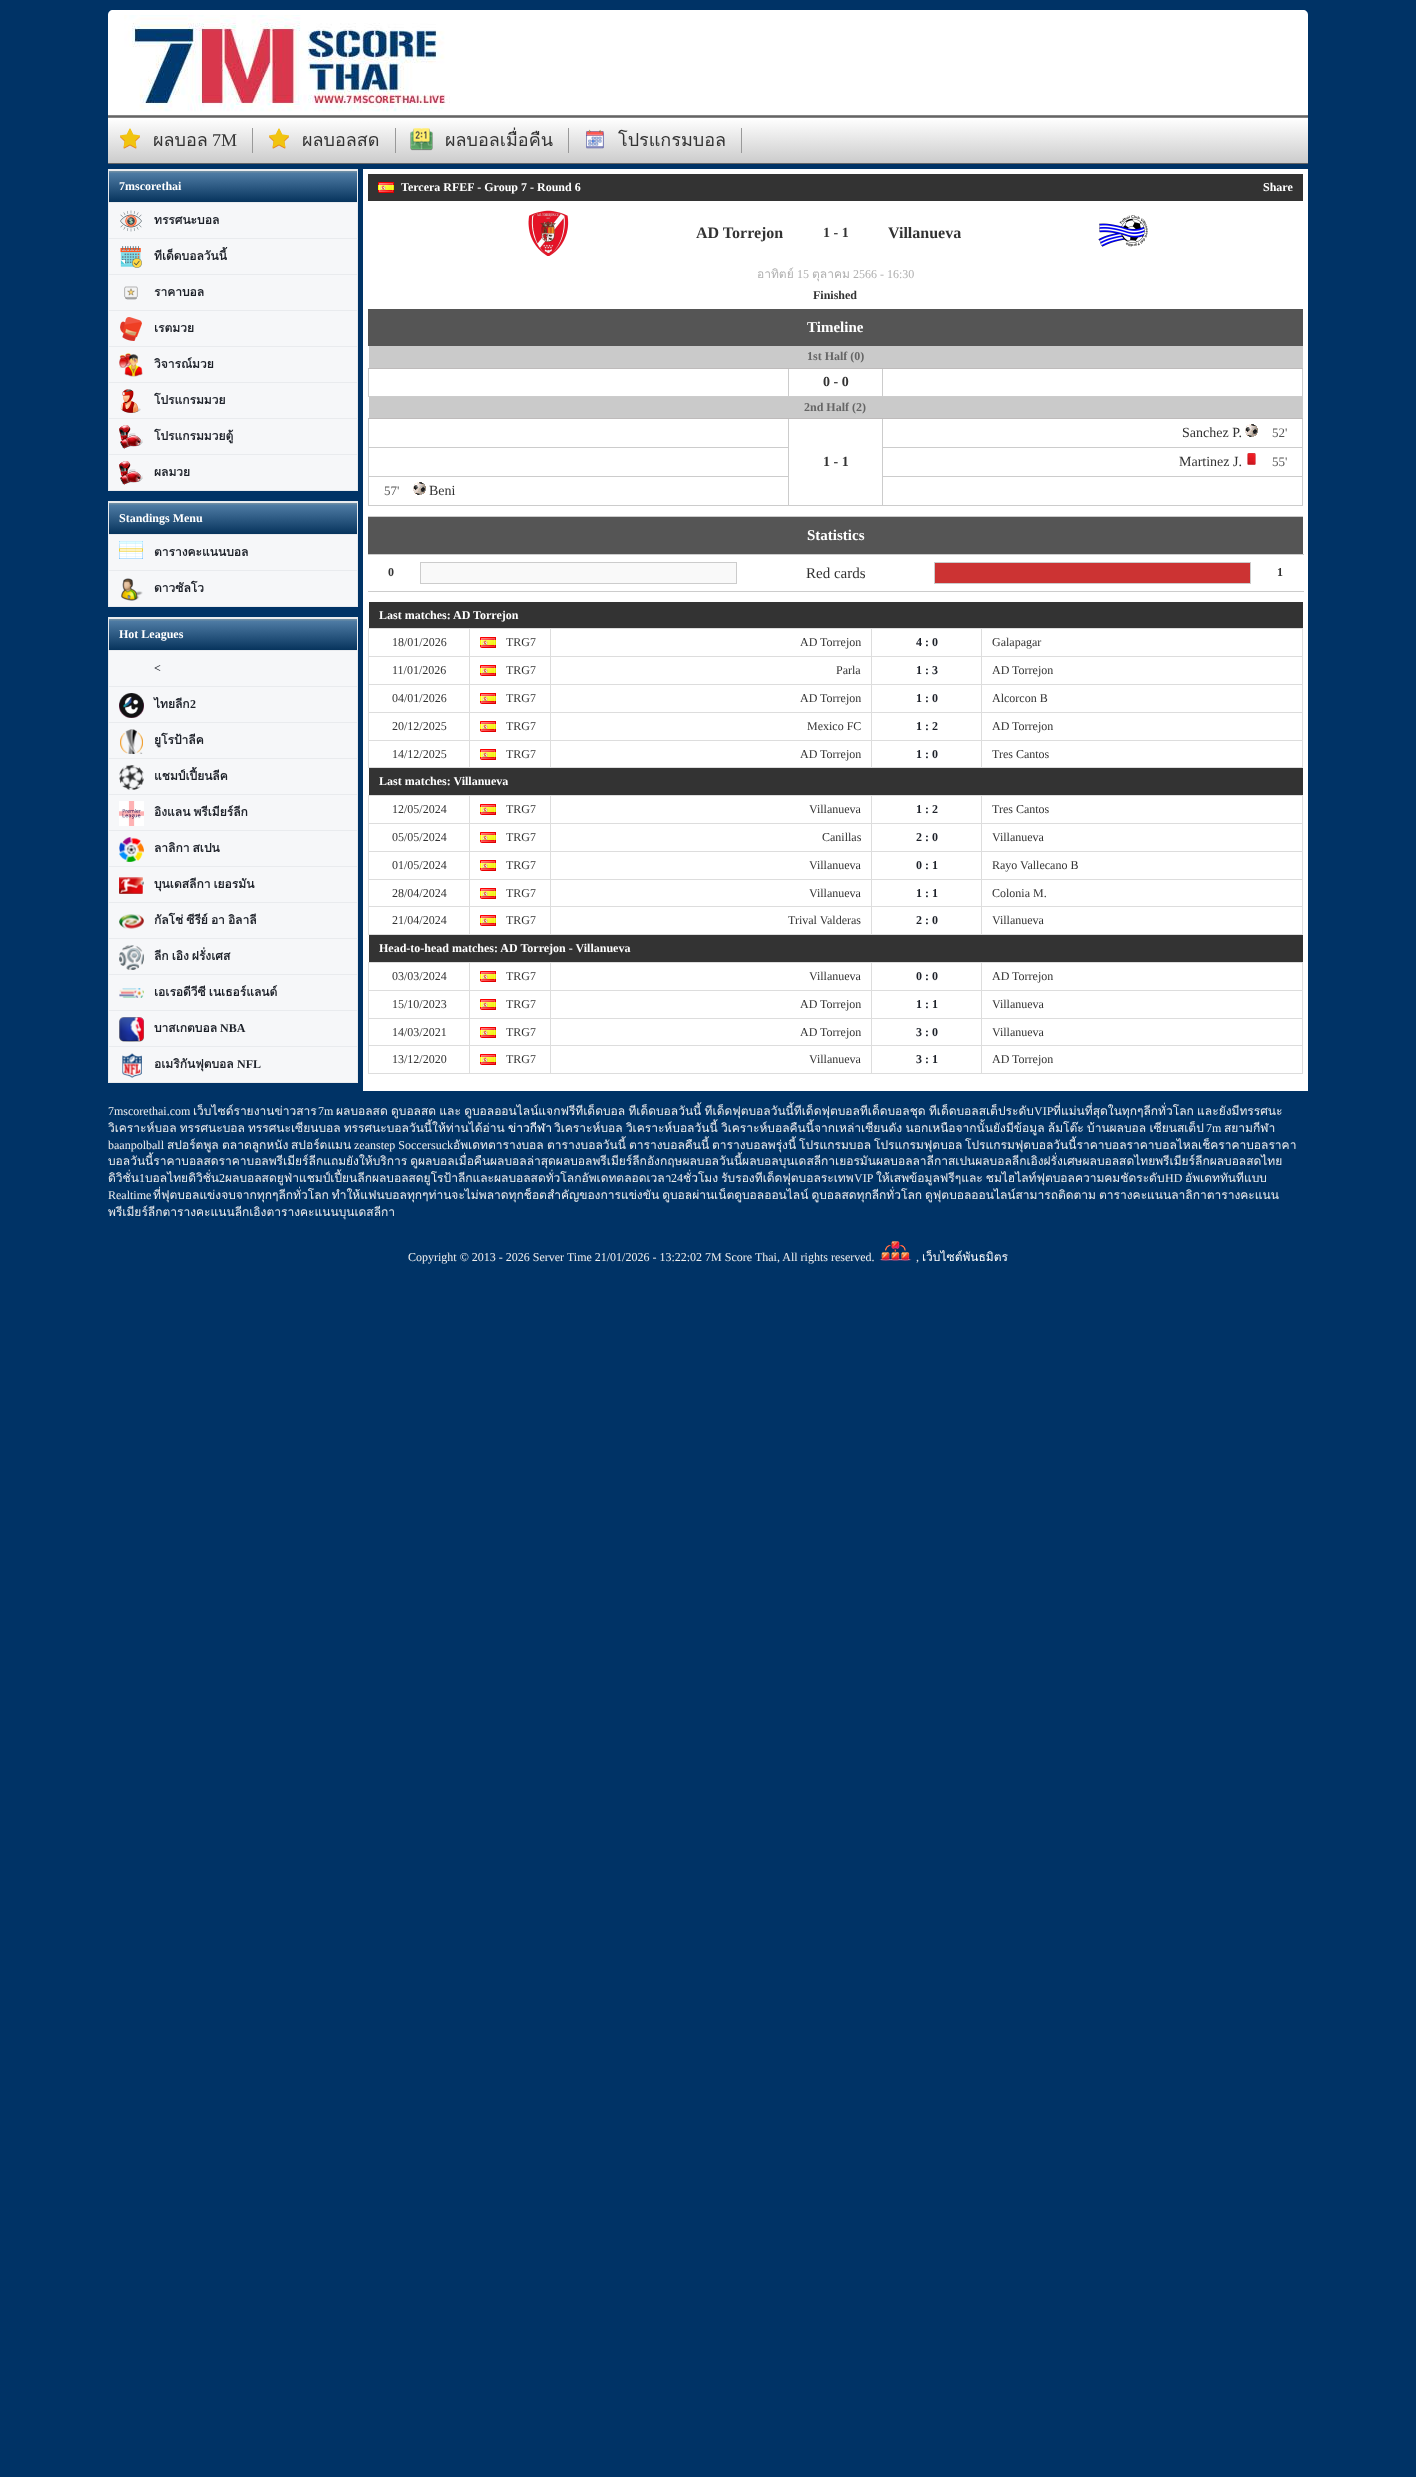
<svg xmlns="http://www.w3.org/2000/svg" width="1416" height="2477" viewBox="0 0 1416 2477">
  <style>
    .t1 { font: 18px Loma; fill: #333; }
    .t2 { font: 18px Liberation Serif; fill: #333; }
    .t3 { font: bold 12px Liberation Serif; fill: #fff; }
    .t4 { font: bold 12px Loma; fill: #1d2129; }
    .t5 { font: bold 12px Liberation Serif; fill: #1d2129; }
    .t6 { font: bold 16px Liberation Serif; fill: #333; }
    .t7 { font: bold 14px Liberation Serif; fill: #333; }
    .t8 { font: 12px Loma; fill: #b0b0b0; }
    .t9 { font: 12px Liberation Serif; fill: #b0b0b0; }
    .t10 { font: bold 12px Liberation Serif; fill: #333; }
    .t11 { font: bold 15px Liberation Serif; fill: #fff; }
    .t12 { font: bold 12px Liberation Serif; fill: #656565; }
    .t13 { font: 14px Liberation Serif; fill: #333; }
    .t14 { font: 13px Liberation Serif; fill: #555; }
    .t15 { font: 15px Liberation Serif; fill: #333; }
    .t16 { font: 12px Liberation Serif; fill: #333; }
    .t17 { font: 12px Liberation Serif; fill: #eee; }
    .t18 { font: 12px Loma; fill: #eee; }
    .t19 { font: 12px Loma; fill: #fff; }
  </style>
  <defs>
    <linearGradient id="g1" gradientUnits="userSpaceOnUse" x1="708" y1="118" x2="708" y2="163"><stop offset="0" stop-color="#fff"/><stop offset="1" stop-color="#ccc"/></linearGradient>
    <linearGradient id="g2" gradientUnits="userSpaceOnUse" x1="233" y1="171" x2="233" y2="202"><stop offset="0" stop-color="#7592a5"/><stop offset="0.08" stop-color="#4d7aa3"/><stop offset="1" stop-color="#07345d"/></linearGradient>
    <linearGradient id="g3" gradientUnits="userSpaceOnUse" x1="233" y1="503" x2="233" y2="534"><stop offset="0" stop-color="#7592a5"/><stop offset="0.08" stop-color="#4d7aa3"/><stop offset="1" stop-color="#07345d"/></linearGradient>
    <linearGradient id="g4" gradientUnits="userSpaceOnUse" x1="233" y1="619" x2="233" y2="650"><stop offset="0" stop-color="#7592a5"/><stop offset="0.08" stop-color="#4d7aa3"/><stop offset="1" stop-color="#07345d"/></linearGradient>
  </defs>
  <rect width="100%" height="100%" fill="#036"/>
  <path d="M113 10H1303C1306 10 1308 12 1308 15V164H108V15C108 12 110 10 113 10Z" fill="#fff"/>
  <image x="124" y="15" width="326" height="97" href="images/1.png"/>
  <rect x="108" y="115" width="1200" height="1" fill="#858585"/>
  <rect x="108" y="116" width="1200" height="1" fill="#656565"/>
  <rect x="108" y="120" width="1200" height="43" fill="url(#g1)"/>
  <rect x="108" y="117" width="1200" height="1" fill="#858585"/>
  <rect x="108" y="163" width="1200" height="1" fill="#656565"/>
  <image x="120" y="128" width="20" height="21" href="images/2.png"/>
  <rect x="252" y="128" width="1" height="25" fill="#999"/>
  <text x="153" y="146" class="t1">ผลบอล</text>
  <text x="212" y="146" class="t2">7M</text>
  <image x="269" y="128" width="20" height="21" href="images/2.png"/>
  <rect x="395" y="128" width="1" height="25" fill="#999"/>
  <text x="302" y="146" class="t1">ผลบอลสด</text>
  <image x="410" y="128" width="23" height="23" href="images/3.png"/>
  <rect x="568" y="128" width="1" height="25" fill="#999"/>
  <text x="445" y="146" class="t1">ผลบอลเมื่อคืน</text>
  <image x="586" y="129" width="18" height="20" href="images/4.png"/>
  <rect x="741" y="128" width="1" height="25" fill="#999"/>
  <text x="618" y="146" class="t1">โปรแกรมบอล</text>
  <rect x="109" y="203" width="248" height="287" fill="#f6f7f9"/>
  <rect x="108.5" y="169.5" width="249" height="321" fill="none" stroke="#e9ebee"/>
  <rect x="109" y="171" width="248" height="31" fill="url(#g2)"/>
  <rect x="109" y="170" width="248" height="1" fill="#e9ebee"/>
  <text x="119" y="190" class="t3">7mscorethai</text>
  <image x="120" y="210" width="22" height="22" href="images/5.png"/>
  <rect x="109" y="202" width="248" height="1" fill="#e9ebee"/>
  <text x="154" y="224" class="t4">ทรรศนะบอล</text>
  <image x="120" y="246" width="22" height="22" href="images/6.png"/>
  <rect x="109" y="238" width="248" height="1" fill="#e9ebee"/>
  <text x="154" y="260" class="t4">ทีเด็ดบอลวันนี้</text>
  <image x="124" y="286" width="14" height="14" href="images/7.png"/>
  <rect x="109" y="274" width="248" height="1" fill="#e9ebee"/>
  <text x="154" y="296" class="t4">ราคาบอล</text>
  <image x="120" y="317" width="22" height="24" href="images/8.png"/>
  <rect x="109" y="310" width="248" height="1" fill="#e9ebee"/>
  <text x="154" y="332" class="t4">เรตมวย</text>
  <image x="119" y="353" width="24" height="24" href="images/9.png"/>
  <rect x="109" y="346" width="248" height="1" fill="#e9ebee"/>
  <text x="154" y="368" class="t4">วิจารณ์มวย</text>
  <image x="120" y="389" width="21" height="24" href="images/10.png"/>
  <rect x="109" y="382" width="248" height="1" fill="#e9ebee"/>
  <text x="154" y="404" class="t4">โปรแกรมมวย</text>
  <image x="119" y="425" width="24" height="24" href="images/11.png"/>
  <rect x="109" y="418" width="248" height="1" fill="#e9ebee"/>
  <text x="154" y="440" class="t4">โปรแกรมมวยตู้</text>
  <image x="119" y="461" width="24" height="24" href="images/11.png"/>
  <rect x="109" y="454" width="248" height="1" fill="#e9ebee"/>
  <text x="154" y="476" class="t4">ผลมวย</text>
  <rect x="109" y="535" width="248" height="71" fill="#f6f7f9"/>
  <rect x="108.5" y="501.5" width="249" height="105" fill="none" stroke="#e9ebee"/>
  <rect x="109" y="503" width="248" height="31" fill="url(#g3)"/>
  <rect x="109" y="502" width="248" height="1" fill="#e9ebee"/>
  <text x="119" y="522" class="t3">Standings Menu</text>
  <image x="119" y="541" width="24" height="18" href="images/12.png"/>
  <rect x="109" y="534" width="248" height="1" fill="#e9ebee"/>
  <text x="154" y="556" class="t4">ตารางคะแนนบอล</text>
  <image x="121" y="578" width="22" height="23" href="images/13.png"/>
  <rect x="109" y="570" width="248" height="1" fill="#e9ebee"/>
  <text x="154" y="592" class="t4">ดาวซัลโว</text>
  <rect x="109" y="651" width="248" height="431" fill="#f6f7f9"/>
  <rect x="108.5" y="617.5" width="249" height="465" fill="none" stroke="#e9ebee"/>
  <rect x="109" y="619" width="248" height="31" fill="url(#g4)"/>
  <rect x="109" y="618" width="248" height="1" fill="#e9ebee"/>
  <text x="119" y="638" class="t3">Hot Leagues</text>
  <rect x="109" y="650" width="248" height="1" fill="#e9ebee"/>
  <text x="154" y="672" class="t5">&lt;</text>
  <image x="119" y="693" width="25" height="25" href="images/14.png"/>
  <rect x="109" y="686" width="248" height="1" fill="#e9ebee"/>
  <text x="154" y="708" class="t4">ไทยลีก</text>
  <text x="190" y="708" class="t5">2</text>
  <image x="120" y="729" width="23" height="25" href="images/15.png"/>
  <rect x="109" y="722" width="248" height="1" fill="#e9ebee"/>
  <text x="154" y="744" class="t4">ยูโรป้าลีค</text>
  <image x="119" y="765" width="25" height="25" href="images/16.png"/>
  <rect x="109" y="758" width="248" height="1" fill="#e9ebee"/>
  <text x="154" y="780" class="t4">แชมป์เปี้ยนลีค</text>
  <image x="119" y="801" width="25" height="25" href="images/17.png"/>
  <rect x="109" y="794" width="248" height="1" fill="#e9ebee"/>
  <text x="154" y="816" word-spacing="-1" class="t4">อิงแลน พรีเมียร์ลีก</text>
  <image x="119" y="837" width="25" height="25" href="images/18.png"/>
  <rect x="109" y="830" width="248" height="1" fill="#e9ebee"/>
  <text x="154" y="852" word-spacing="-1" class="t4">ลาลิกา สเปน</text>
  <image x="119" y="877" width="25" height="17" href="images/19.png"/>
  <rect x="109" y="866" width="248" height="1" fill="#e9ebee"/>
  <text x="154" y="888" word-spacing="-1" class="t4">บุนเดสลีกา เยอรมัน</text>
  <image x="119" y="914" width="25" height="15" href="images/20.png"/>
  <rect x="109" y="902" width="248" height="1" fill="#e9ebee"/>
  <text x="154" y="924" word-spacing="-1" class="t4">กัลโช่ ซีรีย์ อา อิลาลี</text>
  <image x="119" y="945" width="25" height="25" href="images/21.png"/>
  <rect x="109" y="938" width="248" height="1" fill="#e9ebee"/>
  <text x="154" y="960" word-spacing="-1" class="t4">ลีก เอิง ฝรั่งเศส</text>
  <image x="119" y="988" width="25" height="10" href="images/22.png"/>
  <rect x="109" y="974" width="248" height="1" fill="#e9ebee"/>
  <text x="154" y="996" word-spacing="-1" class="t4">เอเรอดีวีซี เนเธอร์แลนด์</text>
  <image x="119" y="1017" width="25" height="25" href="images/23.png"/>
  <rect x="109" y="1010" width="248" height="1" fill="#e9ebee"/>
  <text x="154" y="1032" class="t4">บาสเกตบอล</text>
  <text x="220" y="1032" class="t5">NBA</text>
  <image x="122" y="1053" width="20" height="25" href="images/24.png"/>
  <rect x="109" y="1046" width="248" height="1" fill="#e9ebee"/>
  <text x="154" y="1068" class="t4">อเมริกันฟุตบอล</text>
  <text x="237" y="1068" class="t5">NFL</text>
  <rect x="363" y="169" width="945" height="922" fill="#fff"/>
  <rect x="368" y="174" width="935" height="27" fill="#333"/>
  <image x="378" y="182" width="16" height="11" href="images/25.png"/>
  <text x="401" y="191" class="t3">Tercera RFEF - Group 7 - Round 6</text>
  <text x="1263" y="191" class="t3">Share</text>
  <image x="528" y="210" width="41" height="46" href="images/26.png"/>
  <text x="696" y="238" class="t6">AD Torrejon</text>
  <text x="823" y="237" class="t7">1 - 1</text>
  <text x="888" y="238" class="t6">Villanueva</text>
  <image x="1098" y="215" width="50" height="32" href="images/27.png"/>
  <text x="757" y="278" class="t8">อาทิตย์</text>
  <text x="797" y="278" class="t9">15</text>
  <text x="812" y="278" class="t8">ตุลาคม</text>
  <text x="853" y="278" class="t9">2566 - 16:30</text>
  <text x="813" y="299" class="t10">Finished</text>
  <rect x="368" y="309" width="935" height="37" fill="#555"/>
  <text x="807" y="332" class="t11">Timeline</text>
  <rect x="369" y="346" width="934" height="22" fill="#cacaca"/>
  <rect x="1302" y="368" width="1" height="29" fill="#ccc"/>
  <rect x="882" y="396" width="421" height="1" fill="#ccc"/>
  <rect x="882" y="368" width="1" height="29" fill="#ccc"/>
  <rect x="788" y="396" width="95" height="1" fill="#ccc"/>
  <rect x="788" y="368" width="1" height="29" fill="#ccc"/>
  <rect x="368" y="396" width="421" height="1" fill="#ccc"/>
  <rect x="368" y="368" width="1" height="29" fill="#ccc"/>
  <rect x="368" y="368" width="935" height="1" fill="#bebbbb"/>
  <text x="807" y="360" class="t12">1st Half (0)</text>
  <text x="823" y="386" class="t7">0 - 0</text>
  <rect x="369" y="397" width="934" height="21" fill="#cacaca"/>
  <rect x="368" y="447" width="421" height="1" fill="#ccc"/>
  <rect x="368" y="476" width="421" height="1" fill="#ccc"/>
  <rect x="882" y="476" width="421" height="1" fill="#ccc"/>
  <rect x="1302" y="476" width="1" height="30" fill="#ccc"/>
  <rect x="882" y="505" width="421" height="1" fill="#ccc"/>
  <rect x="882" y="476" width="1" height="30" fill="#ccc"/>
  <rect x="368" y="505" width="515" height="1" fill="#ccc"/>
  <rect x="788" y="418" width="1" height="88" fill="#ccc"/>
  <rect x="368" y="476" width="1" height="30" fill="#ccc"/>
  <rect x="368" y="418" width="1" height="59" fill="#ccc"/>
  <rect x="882" y="447" width="421" height="1" fill="#ccc"/>
  <rect x="1302" y="418" width="1" height="59" fill="#ccc"/>
  <rect x="882" y="418" width="1" height="59" fill="#ccc"/>
  <rect x="368" y="418" width="935" height="1" fill="#bebbbb"/>
  <text x="804" y="411" class="t12">2nd Half (2)</text>
  <text x="1182" y="437" class="t13">Sanchez P.</text>
  <image x="1245" y="424" width="13" height="13" href="images/28.png"/>
  <text x="1272" y="437" class="t14">52'</text>
  <text x="823" y="466" class="t7">1 - 1</text>
  <text x="1179" y="466" class="t13">Martinez J.</text>
  <image x="1247" y="453" width="9" height="12" href="images/29.png"/>
  <text x="1272" y="466" class="t14">55'</text>
  <text x="384" y="495" class="t14">57'</text>
  <image x="413" y="482" width="13" height="13" href="images/28.png"/>
  <text x="429" y="495" class="t13">Beni</text>
  <rect x="368" y="516" width="935" height="1" fill="#ccc"/>
  <rect x="368" y="517" width="935" height="37" fill="#555"/>
  <rect x="368" y="554" width="936" height="1" fill="#ccc"/>
  <text x="807" y="540" class="t11">Statistics</text>
  <text x="388" y="576" class="t10">0</text>
  <rect x="420.5" y="562.5" width="316" height="21" fill="#f9f9f9" stroke="#ccc"/>
  <text x="806" y="578" class="t15">Red cards</text>
  <rect x="934.5" y="562.5" width="316" height="21" fill="none" stroke="#ccc"/>
  <rect x="935" y="563" width="315" height="20" fill="#c33"/>
  <rect x="368" y="591" width="936" height="1" fill="#ccc"/>
  <text x="1277" y="576" class="t10">1</text>
  <rect x="369" y="602" width="934" height="26" fill="#333"/>
  <text x="379" y="619" class="t3">Last matches: AD Torrejon</text>
  <rect x="981" y="628" width="322" height="1" fill="#ddd"/>
  <rect x="981" y="656" width="322" height="1" fill="#ddd"/>
  <rect x="981" y="684" width="322" height="1" fill="#ddd"/>
  <rect x="981" y="712" width="322" height="1" fill="#ddd"/>
  <rect x="981" y="740" width="322" height="1" fill="#ddd"/>
  <rect x="1302" y="740" width="1" height="28" fill="#ddd"/>
  <rect x="981" y="767" width="322" height="1" fill="#ddd"/>
  <rect x="981" y="740" width="1" height="28" fill="#ddd"/>
  <rect x="871" y="740" width="111" height="1" fill="#ddd"/>
  <rect x="981" y="712" width="1" height="29" fill="#ddd"/>
  <rect x="871" y="712" width="111" height="1" fill="#ddd"/>
  <rect x="981" y="684" width="1" height="29" fill="#ddd"/>
  <rect x="871" y="684" width="111" height="1" fill="#ddd"/>
  <rect x="981" y="656" width="1" height="29" fill="#ddd"/>
  <rect x="871" y="656" width="111" height="1" fill="#ddd"/>
  <rect x="981" y="628" width="1" height="29" fill="#ddd"/>
  <rect x="871" y="628" width="111" height="1" fill="#ddd"/>
  <rect x="871" y="767" width="111" height="1" fill="#ddd"/>
  <rect x="871" y="740" width="1" height="28" fill="#ddd"/>
  <rect x="550" y="740" width="322" height="1" fill="#ddd"/>
  <rect x="871" y="712" width="1" height="29" fill="#ddd"/>
  <rect x="550" y="712" width="322" height="1" fill="#ddd"/>
  <rect x="871" y="684" width="1" height="29" fill="#ddd"/>
  <rect x="550" y="684" width="322" height="1" fill="#ddd"/>
  <rect x="871" y="656" width="1" height="29" fill="#ddd"/>
  <rect x="550" y="656" width="322" height="1" fill="#ddd"/>
  <rect x="871" y="628" width="1" height="29" fill="#ddd"/>
  <rect x="550" y="628" width="322" height="1" fill="#ddd"/>
  <rect x="550" y="767" width="322" height="1" fill="#ddd"/>
  <rect x="550" y="740" width="1" height="28" fill="#ddd"/>
  <rect x="469" y="740" width="82" height="1" fill="#ddd"/>
  <rect x="550" y="712" width="1" height="29" fill="#ddd"/>
  <rect x="469" y="712" width="82" height="1" fill="#ddd"/>
  <rect x="550" y="684" width="1" height="29" fill="#ddd"/>
  <rect x="469" y="684" width="82" height="1" fill="#ddd"/>
  <rect x="550" y="656" width="1" height="29" fill="#ddd"/>
  <rect x="469" y="656" width="82" height="1" fill="#ddd"/>
  <rect x="550" y="628" width="1" height="29" fill="#ddd"/>
  <rect x="469" y="628" width="82" height="1" fill="#ddd"/>
  <rect x="469" y="767" width="82" height="1" fill="#ddd"/>
  <rect x="469" y="740" width="1" height="28" fill="#ddd"/>
  <rect x="368" y="740" width="102" height="1" fill="#ddd"/>
  <rect x="469" y="712" width="1" height="29" fill="#ddd"/>
  <rect x="368" y="712" width="102" height="1" fill="#ddd"/>
  <rect x="469" y="684" width="1" height="29" fill="#ddd"/>
  <rect x="368" y="684" width="102" height="1" fill="#ddd"/>
  <rect x="469" y="656" width="1" height="29" fill="#ddd"/>
  <rect x="368" y="656" width="102" height="1" fill="#ddd"/>
  <rect x="469" y="628" width="1" height="29" fill="#ddd"/>
  <rect x="368" y="628" width="102" height="1" fill="#ddd"/>
  <rect x="368" y="767" width="102" height="1" fill="#ddd"/>
  <rect x="368" y="740" width="1" height="28" fill="#ddd"/>
  <rect x="368" y="712" width="1" height="29" fill="#ddd"/>
  <rect x="368" y="684" width="1" height="29" fill="#ddd"/>
  <rect x="368" y="656" width="1" height="29" fill="#ddd"/>
  <rect x="368" y="628" width="1" height="29" fill="#ddd"/>
  <text x="392" y="646" class="t16">18/01/2026</text>
  <image x="480" y="637" width="16" height="11" href="images/30.png"/>
  <text x="506" y="646" class="t16">TRG7</text>
  <text x="800" y="646" class="t16">AD Torrejon</text>
  <text x="916" y="646" class="t5">4 : 0</text>
  <rect x="1302" y="712" width="1" height="29" fill="#ddd"/>
  <rect x="1302" y="684" width="1" height="29" fill="#ddd"/>
  <rect x="1302" y="656" width="1" height="29" fill="#ddd"/>
  <rect x="1302" y="628" width="1" height="29" fill="#ddd"/>
  <text x="992" y="646" class="t16">Galapagar</text>
  <text x="392" y="674" class="t16">11/01/2026</text>
  <image x="480" y="665" width="16" height="11" href="images/30.png"/>
  <text x="506" y="674" class="t16">TRG7</text>
  <text x="836" y="674" class="t16">Parla</text>
  <text x="916" y="674" class="t5">1 : 3</text>
  <text x="992" y="674" class="t16">AD Torrejon</text>
  <text x="392" y="702" class="t16">04/01/2026</text>
  <image x="480" y="693" width="16" height="11" href="images/30.png"/>
  <text x="506" y="702" class="t16">TRG7</text>
  <text x="800" y="702" class="t16">AD Torrejon</text>
  <text x="916" y="702" class="t5">1 : 0</text>
  <text x="992" y="702" class="t16">Alcorcon B</text>
  <text x="392" y="730" class="t16">20/12/2025</text>
  <image x="480" y="721" width="16" height="11" href="images/30.png"/>
  <text x="506" y="730" class="t16">TRG7</text>
  <text x="807" y="730" class="t16">Mexico FC</text>
  <text x="916" y="730" class="t5">1 : 2</text>
  <text x="992" y="730" class="t16">AD Torrejon</text>
  <text x="392" y="758" class="t16">14/12/2025</text>
  <image x="480" y="749" width="16" height="11" href="images/30.png"/>
  <text x="506" y="758" class="t16">TRG7</text>
  <text x="800" y="758" class="t16">AD Torrejon</text>
  <text x="916" y="758" class="t5">1 : 0</text>
  <text x="992" y="758" class="t16">Tres Cantos</text>
  <rect x="369" y="768" width="934" height="27" fill="#333"/>
  <text x="379" y="785" class="t3">Last matches: Villanueva</text>
  <rect x="981" y="795" width="322" height="1" fill="#ddd"/>
  <rect x="981" y="823" width="322" height="1" fill="#ddd"/>
  <rect x="981" y="851" width="322" height="1" fill="#ddd"/>
  <rect x="981" y="879" width="322" height="1" fill="#ddd"/>
  <rect x="981" y="906" width="322" height="1" fill="#ddd"/>
  <rect x="1302" y="906" width="1" height="29" fill="#ddd"/>
  <rect x="981" y="934" width="322" height="1" fill="#ddd"/>
  <rect x="981" y="906" width="1" height="29" fill="#ddd"/>
  <rect x="871" y="906" width="111" height="1" fill="#ddd"/>
  <rect x="981" y="879" width="1" height="28" fill="#ddd"/>
  <rect x="871" y="879" width="111" height="1" fill="#ddd"/>
  <rect x="981" y="851" width="1" height="29" fill="#ddd"/>
  <rect x="871" y="851" width="111" height="1" fill="#ddd"/>
  <rect x="981" y="823" width="1" height="29" fill="#ddd"/>
  <rect x="871" y="823" width="111" height="1" fill="#ddd"/>
  <rect x="981" y="795" width="1" height="29" fill="#ddd"/>
  <rect x="871" y="795" width="111" height="1" fill="#ddd"/>
  <rect x="871" y="934" width="111" height="1" fill="#ddd"/>
  <rect x="871" y="906" width="1" height="29" fill="#ddd"/>
  <rect x="550" y="906" width="322" height="1" fill="#ddd"/>
  <rect x="871" y="879" width="1" height="28" fill="#ddd"/>
  <rect x="550" y="879" width="322" height="1" fill="#ddd"/>
  <rect x="871" y="851" width="1" height="29" fill="#ddd"/>
  <rect x="550" y="851" width="322" height="1" fill="#ddd"/>
  <rect x="871" y="823" width="1" height="29" fill="#ddd"/>
  <rect x="550" y="823" width="322" height="1" fill="#ddd"/>
  <rect x="871" y="795" width="1" height="29" fill="#ddd"/>
  <rect x="550" y="795" width="322" height="1" fill="#ddd"/>
  <rect x="550" y="934" width="322" height="1" fill="#ddd"/>
  <rect x="550" y="906" width="1" height="29" fill="#ddd"/>
  <rect x="469" y="906" width="82" height="1" fill="#ddd"/>
  <rect x="550" y="879" width="1" height="28" fill="#ddd"/>
  <rect x="469" y="879" width="82" height="1" fill="#ddd"/>
  <rect x="550" y="851" width="1" height="29" fill="#ddd"/>
  <rect x="469" y="851" width="82" height="1" fill="#ddd"/>
  <rect x="550" y="823" width="1" height="29" fill="#ddd"/>
  <rect x="469" y="823" width="82" height="1" fill="#ddd"/>
  <rect x="550" y="795" width="1" height="29" fill="#ddd"/>
  <rect x="469" y="795" width="82" height="1" fill="#ddd"/>
  <rect x="469" y="934" width="82" height="1" fill="#ddd"/>
  <rect x="469" y="906" width="1" height="29" fill="#ddd"/>
  <rect x="368" y="906" width="102" height="1" fill="#ddd"/>
  <rect x="469" y="879" width="1" height="28" fill="#ddd"/>
  <rect x="368" y="879" width="102" height="1" fill="#ddd"/>
  <rect x="469" y="851" width="1" height="29" fill="#ddd"/>
  <rect x="368" y="851" width="102" height="1" fill="#ddd"/>
  <rect x="469" y="823" width="1" height="29" fill="#ddd"/>
  <rect x="368" y="823" width="102" height="1" fill="#ddd"/>
  <rect x="469" y="795" width="1" height="29" fill="#ddd"/>
  <rect x="368" y="795" width="102" height="1" fill="#ddd"/>
  <rect x="368" y="934" width="102" height="1" fill="#ddd"/>
  <rect x="368" y="906" width="1" height="29" fill="#ddd"/>
  <rect x="368" y="879" width="1" height="28" fill="#ddd"/>
  <rect x="368" y="851" width="1" height="29" fill="#ddd"/>
  <rect x="368" y="823" width="1" height="29" fill="#ddd"/>
  <rect x="368" y="795" width="1" height="29" fill="#ddd"/>
  <text x="392" y="813" class="t16">12/05/2024</text>
  <image x="480" y="804" width="16" height="11" href="images/30.png"/>
  <text x="506" y="813" class="t16">TRG7</text>
  <text x="809" y="813" class="t16">Villanueva</text>
  <text x="916" y="813" class="t5">1 : 2</text>
  <rect x="1302" y="879" width="1" height="28" fill="#ddd"/>
  <rect x="1302" y="851" width="1" height="29" fill="#ddd"/>
  <rect x="1302" y="823" width="1" height="29" fill="#ddd"/>
  <rect x="1302" y="795" width="1" height="29" fill="#ddd"/>
  <text x="992" y="813" class="t16">Tres Cantos</text>
  <text x="392" y="841" class="t16">05/05/2024</text>
  <image x="480" y="832" width="16" height="11" href="images/30.png"/>
  <text x="506" y="841" class="t16">TRG7</text>
  <text x="822" y="841" class="t16">Canillas</text>
  <text x="916" y="841" class="t5">2 : 0</text>
  <text x="992" y="841" class="t16">Villanueva</text>
  <text x="392" y="869" class="t16">01/05/2024</text>
  <image x="480" y="860" width="16" height="11" href="images/30.png"/>
  <text x="506" y="869" class="t16">TRG7</text>
  <text x="809" y="869" class="t16">Villanueva</text>
  <text x="916" y="869" class="t5">0 : 1</text>
  <text x="992" y="869" class="t16">Rayo Vallecano B</text>
  <text x="392" y="897" class="t16">28/04/2024</text>
  <image x="480" y="888" width="16" height="11" href="images/30.png"/>
  <text x="506" y="897" class="t16">TRG7</text>
  <text x="809" y="897" class="t16">Villanueva</text>
  <text x="916" y="897" class="t5">1 : 1</text>
  <text x="992" y="897" class="t16">Colonia M.</text>
  <text x="392" y="924" class="t16">21/04/2024</text>
  <image x="480" y="915" width="16" height="11" href="images/30.png"/>
  <text x="506" y="924" class="t16">TRG7</text>
  <text x="788" y="924" class="t16">Trival Valderas</text>
  <text x="916" y="924" class="t5">2 : 0</text>
  <text x="992" y="924" class="t16">Villanueva</text>
  <rect x="369" y="935" width="934" height="27" fill="#333"/>
  <text x="379" y="952" class="t3">Head-to-head matches: AD Torrejon - Villanueva</text>
  <rect x="981" y="962" width="322" height="1" fill="#ddd"/>
  <rect x="981" y="990" width="322" height="1" fill="#ddd"/>
  <rect x="981" y="1018" width="322" height="1" fill="#ddd"/>
  <rect x="981" y="1045" width="322" height="1" fill="#ddd"/>
  <rect x="1302" y="1045" width="1" height="29" fill="#ddd"/>
  <rect x="981" y="1073" width="322" height="1" fill="#ddd"/>
  <rect x="981" y="1045" width="1" height="29" fill="#ddd"/>
  <rect x="871" y="1045" width="111" height="1" fill="#ddd"/>
  <rect x="981" y="1018" width="1" height="28" fill="#ddd"/>
  <rect x="871" y="1018" width="111" height="1" fill="#ddd"/>
  <rect x="981" y="990" width="1" height="29" fill="#ddd"/>
  <rect x="871" y="990" width="111" height="1" fill="#ddd"/>
  <rect x="981" y="962" width="1" height="29" fill="#ddd"/>
  <rect x="871" y="962" width="111" height="1" fill="#ddd"/>
  <rect x="871" y="1073" width="111" height="1" fill="#ddd"/>
  <rect x="871" y="1045" width="1" height="29" fill="#ddd"/>
  <rect x="550" y="1045" width="322" height="1" fill="#ddd"/>
  <rect x="871" y="1018" width="1" height="28" fill="#ddd"/>
  <rect x="550" y="1018" width="322" height="1" fill="#ddd"/>
  <rect x="871" y="990" width="1" height="29" fill="#ddd"/>
  <rect x="550" y="990" width="322" height="1" fill="#ddd"/>
  <rect x="871" y="962" width="1" height="29" fill="#ddd"/>
  <rect x="550" y="962" width="322" height="1" fill="#ddd"/>
  <rect x="550" y="1073" width="322" height="1" fill="#ddd"/>
  <rect x="550" y="1045" width="1" height="29" fill="#ddd"/>
  <rect x="469" y="1045" width="82" height="1" fill="#ddd"/>
  <rect x="550" y="1018" width="1" height="28" fill="#ddd"/>
  <rect x="469" y="1018" width="82" height="1" fill="#ddd"/>
  <rect x="550" y="990" width="1" height="29" fill="#ddd"/>
  <rect x="469" y="990" width="82" height="1" fill="#ddd"/>
  <rect x="550" y="962" width="1" height="29" fill="#ddd"/>
  <rect x="469" y="962" width="82" height="1" fill="#ddd"/>
  <rect x="469" y="1073" width="82" height="1" fill="#ddd"/>
  <rect x="469" y="1045" width="1" height="29" fill="#ddd"/>
  <rect x="368" y="1045" width="102" height="1" fill="#ddd"/>
  <rect x="469" y="1018" width="1" height="28" fill="#ddd"/>
  <rect x="368" y="1018" width="102" height="1" fill="#ddd"/>
  <rect x="469" y="990" width="1" height="29" fill="#ddd"/>
  <rect x="368" y="990" width="102" height="1" fill="#ddd"/>
  <rect x="469" y="962" width="1" height="29" fill="#ddd"/>
  <rect x="368" y="962" width="102" height="1" fill="#ddd"/>
  <rect x="368" y="1073" width="102" height="1" fill="#ddd"/>
  <rect x="368" y="1045" width="1" height="29" fill="#ddd"/>
  <rect x="368" y="1018" width="1" height="28" fill="#ddd"/>
  <rect x="368" y="990" width="1" height="29" fill="#ddd"/>
  <rect x="368" y="962" width="1" height="29" fill="#ddd"/>
  <text x="392" y="980" class="t16">03/03/2024</text>
  <image x="480" y="971" width="16" height="11" href="images/30.png"/>
  <text x="506" y="980" class="t16">TRG7</text>
  <text x="809" y="980" class="t16">Villanueva</text>
  <text x="916" y="980" class="t5">0 : 0</text>
  <rect x="1302" y="1018" width="1" height="28" fill="#ddd"/>
  <rect x="1302" y="990" width="1" height="29" fill="#ddd"/>
  <rect x="1302" y="962" width="1" height="29" fill="#ddd"/>
  <text x="992" y="980" class="t16">AD Torrejon</text>
  <text x="392" y="1008" class="t16">15/10/2023</text>
  <image x="480" y="999" width="16" height="11" href="images/30.png"/>
  <text x="506" y="1008" class="t16">TRG7</text>
  <text x="800" y="1008" class="t16">AD Torrejon</text>
  <text x="916" y="1008" class="t5">1 : 1</text>
  <text x="992" y="1008" class="t16">Villanueva</text>
  <text x="392" y="1036" class="t16">14/03/2021</text>
  <image x="480" y="1027" width="16" height="11" href="images/30.png"/>
  <text x="506" y="1036" class="t16">TRG7</text>
  <text x="800" y="1036" class="t16">AD Torrejon</text>
  <text x="916" y="1036" class="t5">3 : 0</text>
  <text x="992" y="1036" class="t16">Villanueva</text>
  <text x="392" y="1063" class="t16">13/12/2020</text>
  <image x="480" y="1054" width="16" height="11" href="images/30.png"/>
  <text x="506" y="1063" class="t16">TRG7</text>
  <text x="809" y="1063" class="t16">Villanueva</text>
  <text x="916" y="1063" class="t5">3 : 1</text>
  <text x="992" y="1063" class="t16">AD Torrejon</text>
  <text x="108" y="1115" class="t17">7mscorethai.com</text>
  <text x="193" y="1115" class="t18">เว็บไซด์รายงานข่าวสาร</text>
  <text x="318" y="1115" class="t17">7m</text>
  <text x="336" y="1115" word-spacing="-0.75" class="t18">ผลบอลสด ดูบอลสด และ ดูบอลออนไลน์แจกฟรีทีเด็ดบอล ทีเด็ดบอลวันนี้ ทีเด็ดฟุตบอลวันนี้ทีเด็ดฟุตบอลทีเด็ดบอลชุด ทีเด็ดบอลสเต็ประดับ</text>
  <text x="1034" y="1115" class="t17">VIP</text>
  <text x="1053" y="1115" word-spacing="-0.75" class="t18">ที่แม่นที่สุดในทุกๆลีกทั่วโลก และยังมีทรรศนะ</text>
  <text x="108" y="1132" word-spacing="-1" class="t18">วิเคราะห์บอล ทรรศนะบอล ทรรศนะเซียนบอล ทรรศนะบอลวันนี้ให้ท่านได้อ่าน</text>
  <text x="508" y="1132" class="t19">ข่าวกีฬา</text>
  <text x="554" y="1132" word-spacing="-0.75" class="t18">วิเคราะห์บอล วิเคราะห์บอลวันนี้ วิเคราะห์บอลคืนนี้จากเหล่าเซียนดัง นอกเหนือจากนั้นยังมีข้อมูล ล้มโต๊ะ บ้านผลบอล เซียนสเต็ป</text>
  <text x="1206" y="1132" class="t17">7m</text>
  <text x="1224" y="1132" class="t18">สยามกีฬา</text>
  <text x="108" y="1149" class="t17">baanpolball</text>
  <text x="167" y="1149" class="t18">สปอร์ตพูล</text>
  <text x="222" y="1149" class="t18">ตลาดลูกหนัง</text>
  <text x="291" y="1149" class="t18">สปอร์ตแมน</text>
  <text x="354" y="1149" class="t17">zeanstep Soccersuck</text>
  <text x="453" y="1149" class="t18">อัพเดทตารางบอล</text>
  <text x="547" y="1149" class="t18">ตารางบอลวันนี้</text>
  <text x="629" y="1149" class="t18">ตารางบอลคืนนี้</text>
  <text x="712" y="1149" class="t18">ตารางบอลพรุ่งนี้</text>
  <text x="799" y="1149" class="t18">โปรแกรมบอล</text>
  <text x="874" y="1149" class="t18">โปรแกรมฟุตบอล</text>
  <text x="965" y="1149" class="t18">โปรแกรมฟุตบอลวันนี้ราคาบอลราคาบอลไหลเช็คราคาบอลราคา</text>
  <text x="108" y="1165" word-spacing="-1" class="t18">บอลวันนี้ราคาบอลสดราคาบอลพรีเมียร์ลีกแถมยังให้บริการ ดูผลบอลเมื่อคืนผลบอลล่าสุดผลบอลพรีเมียร์ลีกอังกฤษผลบอลวันนี้ผลบอลบุนเดสลีกาเยอรมันผลบอลลาลีกาสเปนผลบอลลีกเอิงฝรั่งเศษผลบอลสดไทยพรีเมียร์ลีกผลบอลสดไทย</text>
  <text x="108" y="1182" class="t18">ดิวิชั่น</text>
  <text x="139" y="1182" class="t17">1</text>
  <text x="145" y="1182" class="t18">บอลไทยดิวิชั่น</text>
  <text x="219" y="1182" class="t17">2</text>
  <text x="225" y="1182" class="t18">ผลบอลสดยูฟ่าแชมป์เปี้ยนลีกผลบอลสดยูโรป้าลีกและผลบอลสดทั่วโลกอัพเดทตลอดเวลา</text>
  <text x="671" y="1182" class="t17">24</text>
  <text x="683" y="1182" word-spacing="-1" class="t18">ชั่วโมง รับรองทีเด็ดฟุตบอลระเทพ</text>
  <text x="854" y="1182" class="t17">VIP</text>
  <text x="876" y="1182" word-spacing="-1" class="t18">ให้เสพข้อมูลฟรีๆและ ชมไฮไลท์ฟุตบอลความคมชัดระดับ</text>
  <text x="1165" y="1182" class="t17">HD</text>
  <text x="1185" y="1182" class="t18">อัพเดททันทีแบบ</text>
  <text x="108" y="1199" class="t17">Realtime</text>
  <text x="153" y="1199" word-spacing="-1" class="t18">ที่ฟุตบอลแข่งจบจากทุกๆลีกทั่วโลก ทำให้แฟนบอลทุกๆท่านจะไม่พลาดทุกช็อตสำคัญของการแข่งขัน ดูบอลผ่านเน็ตดูบอลออนไลน์ ดูบอลสดทุกลีกทั่วโลก ดูฟุตบอลออนไลน์สามารถติดตาม ตารางคะแนนลาลิกาตารางคะแนน</text>
  <text x="108" y="1216" class="t18">พรีเมียร์ลีกตารางคะแนนลีกเอิงตารางคะแนนบุนเดสลีกา</text>
  <text x="408" y="1261" class="t17">Copyright © 2013 - 2026 Server Time 21/01/2026 - 13:22:02 7M Score Thai, All rights reserved.</text>
  <image x="879" y="1241" width="33" height="20" href="images/31.png"/>
  <text x="916" y="1261" class="t17">,</text>
  <text x="922" y="1261" class="t19">เว็บไซต์พันธมิตร</text>
</svg>
